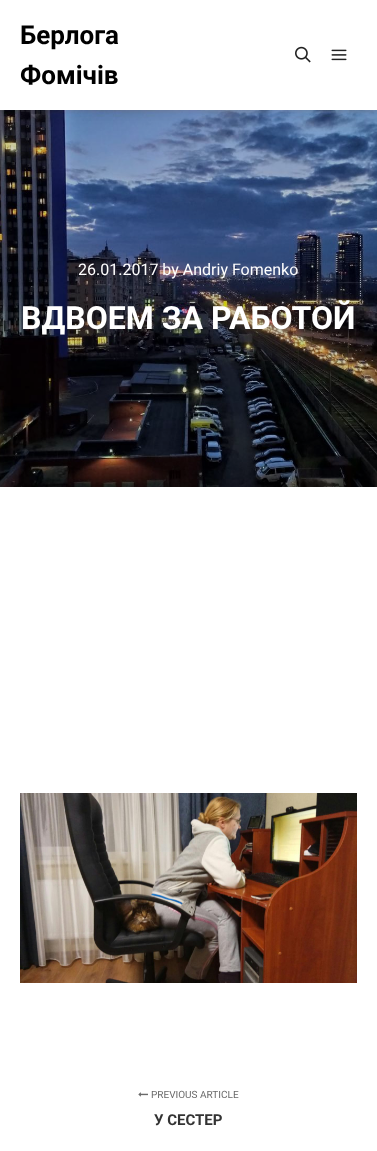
<svg xmlns="http://www.w3.org/2000/svg" width="377" height="1151" viewBox="0 0 377 1151">
  <style>
    .t1 { font: bold 26px Roboto; fill: #000; }
    .t2 { font: 16px Roboto; fill: #fff; }
    .t3 { font: bold 32px Roboto; fill: #fff; }
    .t4 { font: 10px Roboto; fill: #6a6a6a; }
    .t5 { font: bold 15px Roboto; fill: #333; }
  </style>
  <rect width="100%" height="100%" fill="#fff"/>
  <image x="0" y="110" width="377" height="377" href="images/3.png"/>
  <rect x="0" y="0" width="377" height="110" fill="#00000017" filter="blur(6px)"/>
  <rect x="0" y="0" width="377" height="110" fill="#fff"/>
  <text x="20" y="44" class="t1">Берлога</text>
  <text x="20" y="84" class="t1">Фомічів</text>
  <image x="295" y="46" width="16" height="17" href="images/1.png"/>
  <image x="331" y="49" width="16" height="12" href="images/2.png"/>
  <text x="78" y="275" class="t2">26.01.2017 by Andriy Fomenko</text>
  <text x="21" y="329" class="t3">ВДВОЕМ ЗА РАБОТОЙ</text>
  <image x="20" y="793" width="337" height="190" href="images/4.png"/>
  <image x="138" y="1092" width="10" height="5" href="images/5.png"/>
  <text x="151" y="1098" class="t4">PREVIOUS ARTICLE</text>
  <text x="154" y="1125" class="t5">У СЕСТЕР</text>
</svg>
